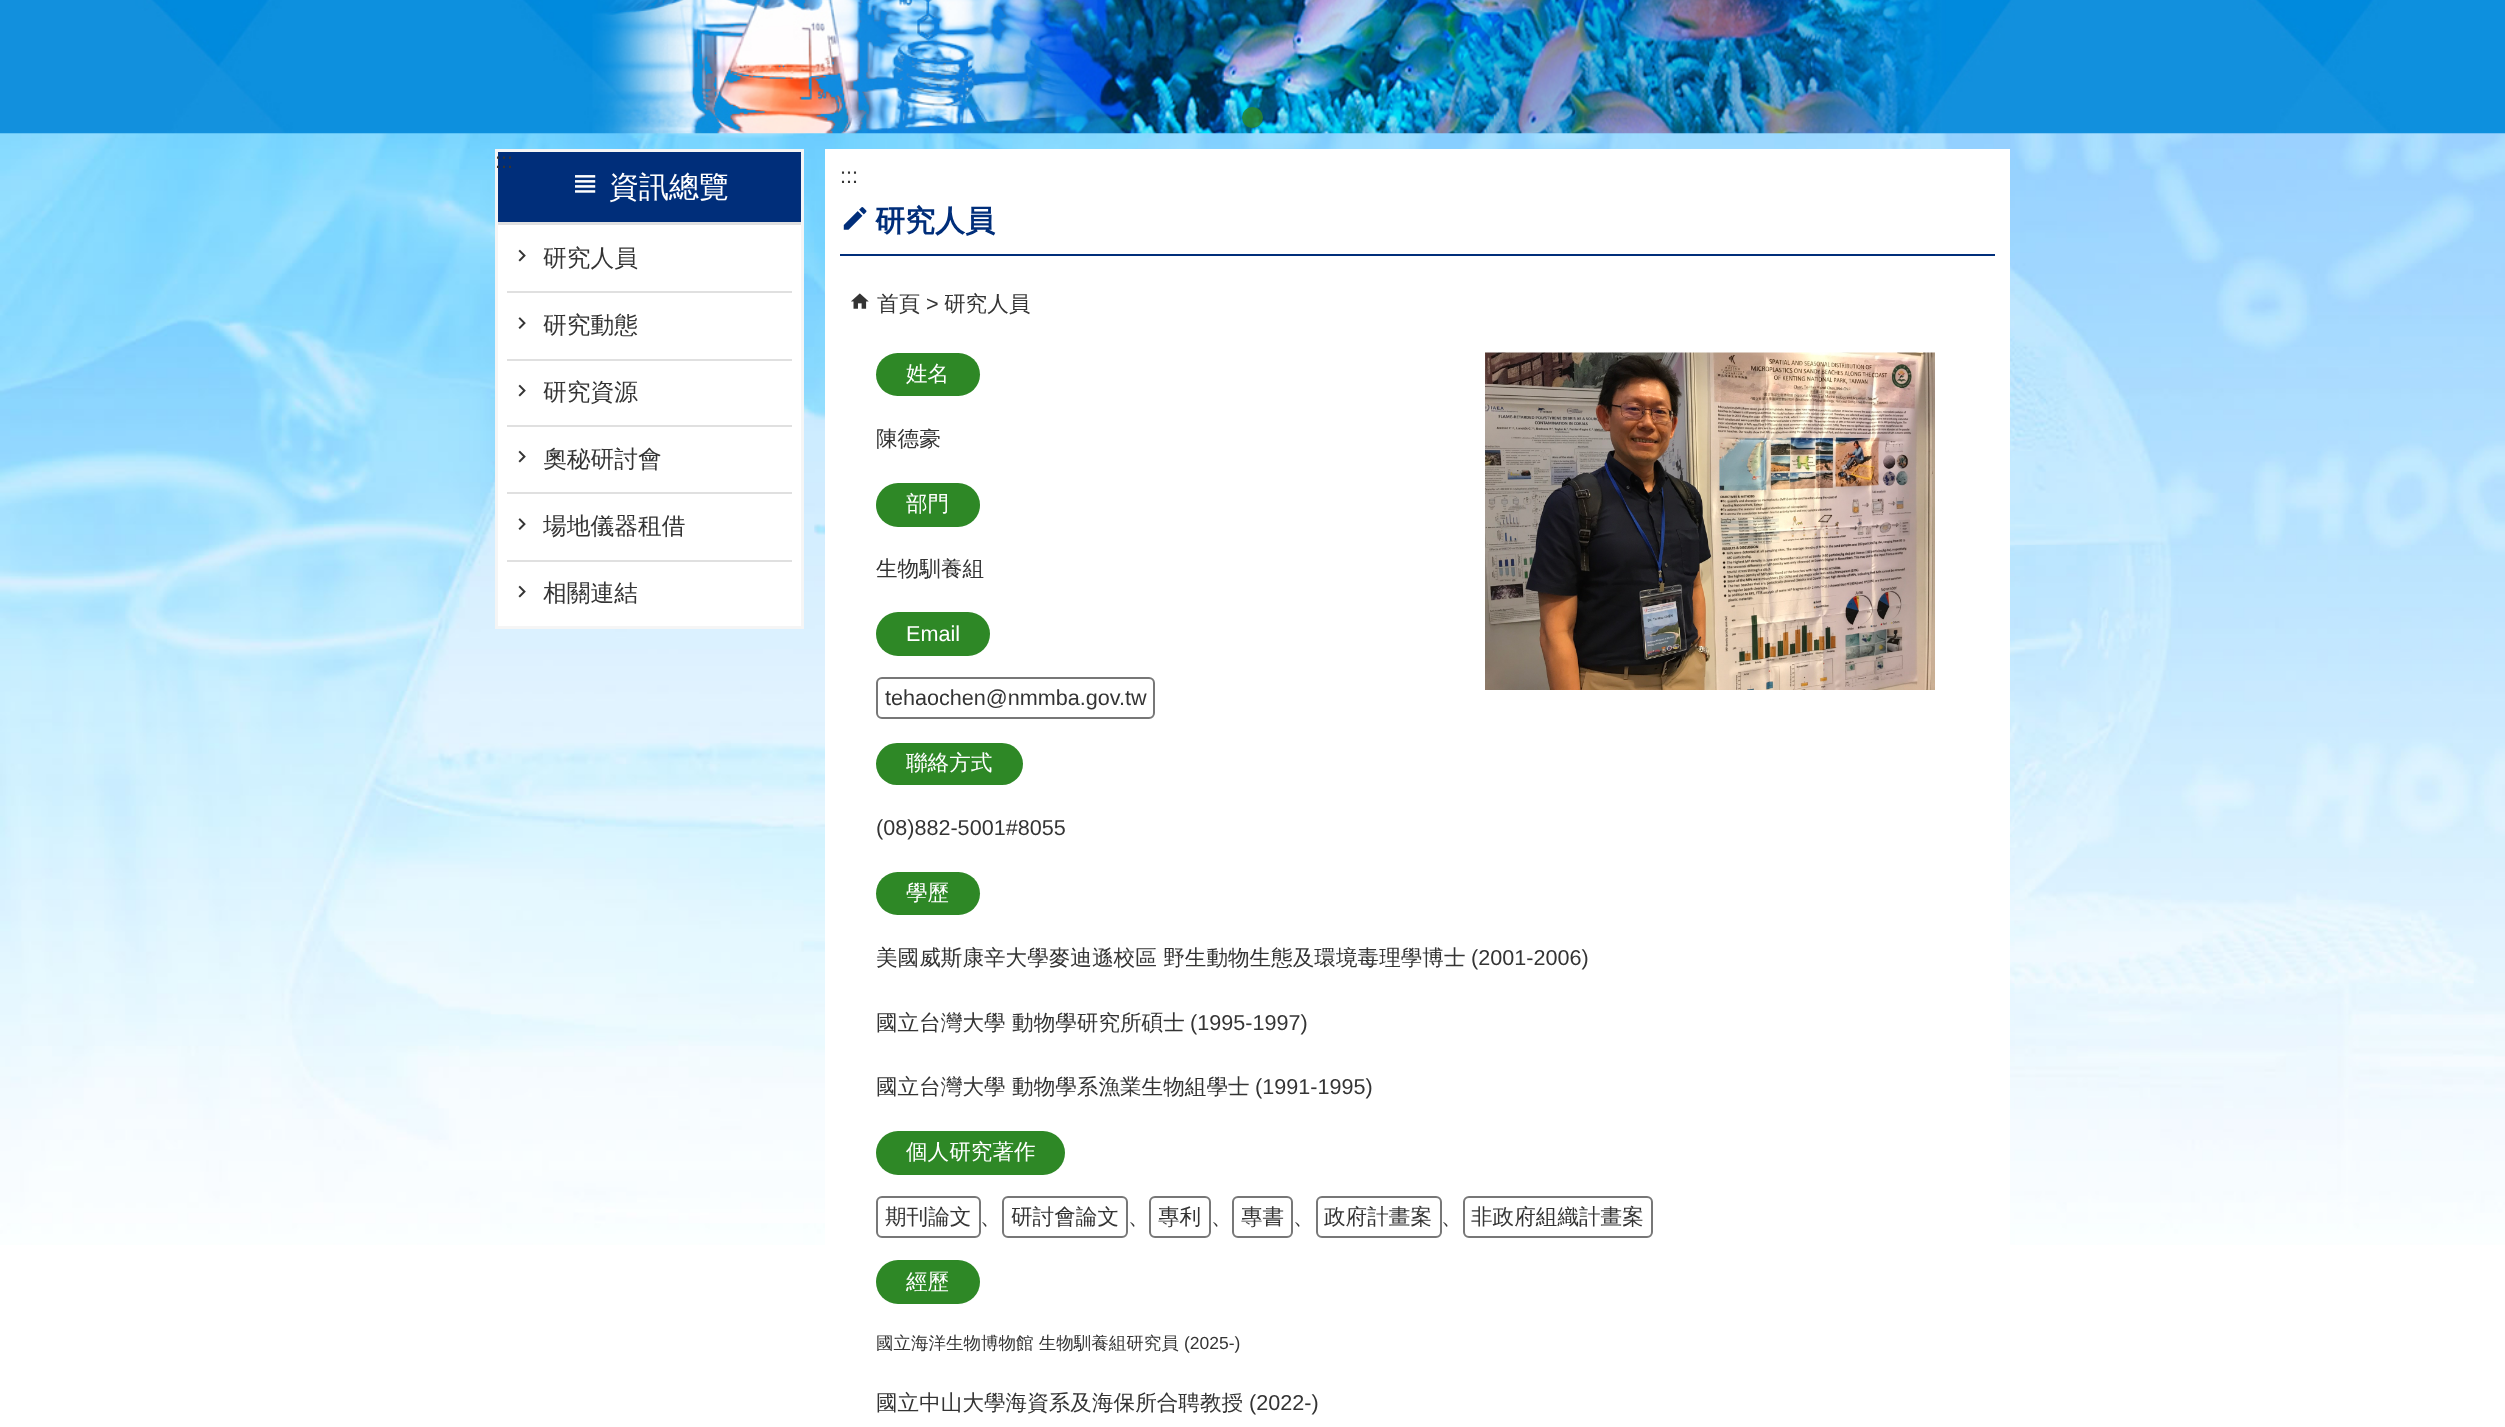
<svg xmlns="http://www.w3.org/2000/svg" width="2505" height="1427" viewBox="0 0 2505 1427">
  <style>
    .t1 { font: 21.6px Liberation Sans; fill: #343434; }
    .t2 { font: 500 30px WenQuanYi Zen Hei; fill: #fff; }
    .t3 { font: 500 23.75px WenQuanYi Zen Hei; fill: #343434; }
    .t4 { font: bold 30px WenQuanYi Zen Hei; fill: #002e7a; }
    .t5 { font: 500 21.6px WenQuanYi Zen Hei; fill: #343434; }
    .t6 { font: 500 21.6px WenQuanYi Zen Hei; fill: #fff; }
    .t7 { font: 21.6px Liberation Sans; fill: #fff; }
    .t8 { font: 500 17.5px WenQuanYi Zen Hei; fill: #343434; }
    .t9 { font: 17.5px Liberation Sans; fill: #343434; }
  </style>
  <rect width="100%" height="100%" fill="#fff"/>
  <image x="0" y="133" width="2505" height="1112" href="images/1.png"/>
  <image x="0" y="0" width="2505" height="134" href="images/2.png"/>
  <circle cx="1252.5" cy="117.5" r="10.5" fill="#2e8826cc"/>
  <rect x="496.5" y="150.5" width="306" height="477" fill="none" stroke="#f5f5f5" stroke-width="3"/>
  <rect x="498" y="152" width="303" height="70" fill="#002e7a"/>
  <text x="495" y="168" class="t1">:::</text>
  <rect x="498" y="222" width="303" height="3" fill="#e0e0e0"/>
  <image x="575" y="175" width="21" height="18" href="images/3.png"/>
  <text x="609" y="197" class="t2">資訊總覽</text>
  <rect x="498" y="225" width="303" height="401" fill="#fff"/>
  <image x="518" y="249" width="8" height="13" href="images/4.png"/>
  <text x="543" y="266" class="t3">研究人員</text>
  <rect x="507" y="291" width="285" height="2" fill="#e0e0e0"/>
  <image x="518" y="317" width="8" height="12" href="images/5.png"/>
  <text x="543" y="333" class="t3">研究動態</text>
  <rect x="507" y="359" width="285" height="2" fill="#e0e0e0"/>
  <image x="518" y="384" width="8" height="13" href="images/4.png"/>
  <text x="543" y="400" class="t3">研究資源</text>
  <rect x="507" y="425" width="285" height="2" fill="#e0e0e0"/>
  <image x="518" y="450" width="8" height="13" href="images/4.png"/>
  <text x="543" y="467" class="t3">奧秘研討會</text>
  <rect x="507" y="492" width="285" height="2" fill="#e0e0e0"/>
  <image x="518" y="518" width="8" height="12" href="images/5.png"/>
  <text x="543" y="534" class="t3">場地儀器租借</text>
  <rect x="507" y="560" width="285" height="2" fill="#e0e0e0"/>
  <image x="518" y="585" width="8" height="13" href="images/4.png"/>
  <text x="543" y="601" class="t3">相關連結</text>
  <rect x="825" y="149" width="1185" height="1096" fill="#fff"/>
  <text x="840" y="183" class="t1">:::</text>
  <rect x="840" y="254" width="1155" height="2" fill="#002e7a"/>
  <image x="843" y="207" width="24" height="23" href="images/6.png"/>
  <text x="875" y="231" class="t4">研究人員</text>
  <image x="851" y="293" width="18" height="16" href="images/7.png"/>
  <text x="877" y="311" class="t5">首頁</text>
  <text x="926" y="311" class="t1">&gt;</text>
  <text x="944" y="311" class="t5">研究人員</text>
  <rect x="876" y="353" width="104" height="43" rx="21.5" fill="#2e8826"/>
  <text x="906" y="381" class="t6">姓名</text>
  <text x="876" y="446" class="t5">陳德豪</text>
  <rect x="876" y="483" width="104" height="44" rx="22" fill="#2e8826"/>
  <text x="906" y="511" class="t6">部門</text>
  <text x="876" y="576" class="t5">生物馴養組</text>
  <rect x="876" y="612" width="114" height="44" rx="22" fill="#2e8826"/>
  <text x="906" y="641" class="t7">Email</text>
  <rect x="877" y="678" width="277" height="40" rx="5" fill="none" stroke="#777" stroke-width="2"/>
  <text x="885" y="705" class="t1">tehaochen@nmmba.gov.tw</text>
  <rect x="876" y="743" width="147" height="42" rx="21" fill="#2e8826"/>
  <text x="906" y="770" class="t6">聯絡方式</text>
  <text x="876" y="835" class="t1">(08)882-5001#8055</text>
  <rect x="876" y="872" width="104" height="43" rx="21.5" fill="#2e8826"/>
  <text x="906" y="900" class="t6">學歷</text>
  <text x="876" y="965" class="t5">美國威斯康辛大學麥迪遜校區 野生動物生態及環境毒理學博士</text>
  <text x="1471" y="965" class="t1">(2001-2006)</text>
  <text x="876" y="1030" class="t5">國立台灣大學 動物學研究所碩士</text>
  <text x="1190" y="1030" class="t1">(1995-1997)</text>
  <text x="876" y="1094" class="t5">國立台灣大學 動物學系漁業生物組學士</text>
  <text x="1255" y="1094" class="t1">(1991-1995)</text>
  <rect x="876" y="1131" width="189" height="44" rx="22" fill="#2e8826"/>
  <text x="906" y="1159" class="t6">個人研究著作</text>
  <rect x="877" y="1197" width="103" height="40" rx="5" fill="none" stroke="#777" stroke-width="2"/>
  <text x="885" y="1224" class="t5">期刊論文</text>
  <text x="980" y="1224" class="t5">、</text>
  <rect x="1003" y="1197" width="124" height="40" rx="5" fill="none" stroke="#777" stroke-width="2"/>
  <text x="1011" y="1224" class="t5">研討會論文</text>
  <text x="1128" y="1224" class="t5">、</text>
  <rect x="1150" y="1197" width="60" height="40" rx="5" fill="none" stroke="#777" stroke-width="2"/>
  <text x="1158" y="1224" class="t5">專利</text>
  <text x="1211" y="1224" class="t5">、</text>
  <rect x="1233" y="1197" width="59" height="40" rx="5" fill="none" stroke="#777" stroke-width="2"/>
  <text x="1241" y="1224" class="t5">專書</text>
  <text x="1293" y="1224" class="t5">、</text>
  <rect x="1317" y="1197" width="124" height="40" rx="5" fill="none" stroke="#777" stroke-width="2"/>
  <text x="1324" y="1224" class="t5">政府計畫案</text>
  <text x="1441" y="1224" class="t5">、</text>
  <rect x="1464" y="1197" width="188" height="40" rx="5" fill="none" stroke="#777" stroke-width="2"/>
  <text x="1471" y="1224" class="t5">非政府組織計畫案</text>
  <rect x="876" y="1260" width="104" height="44" rx="22" fill="#2e8826"/>
  <text x="906" y="1289" class="t6">經歷</text>
  <text x="876" y="1349" class="t8">國立海洋生物博物館 生物馴養組研究員</text>
  <text x="1184" y="1349" class="t9">(2025-)</text>
  <text x="876" y="1410" class="t5">國立中山大學海資系及海保所合聘教授</text>
  <text x="1249" y="1410" class="t1">(2022-)</text>
  <image x="1485" y="352" width="450" height="338" href="images/8.png"/>
</svg>
